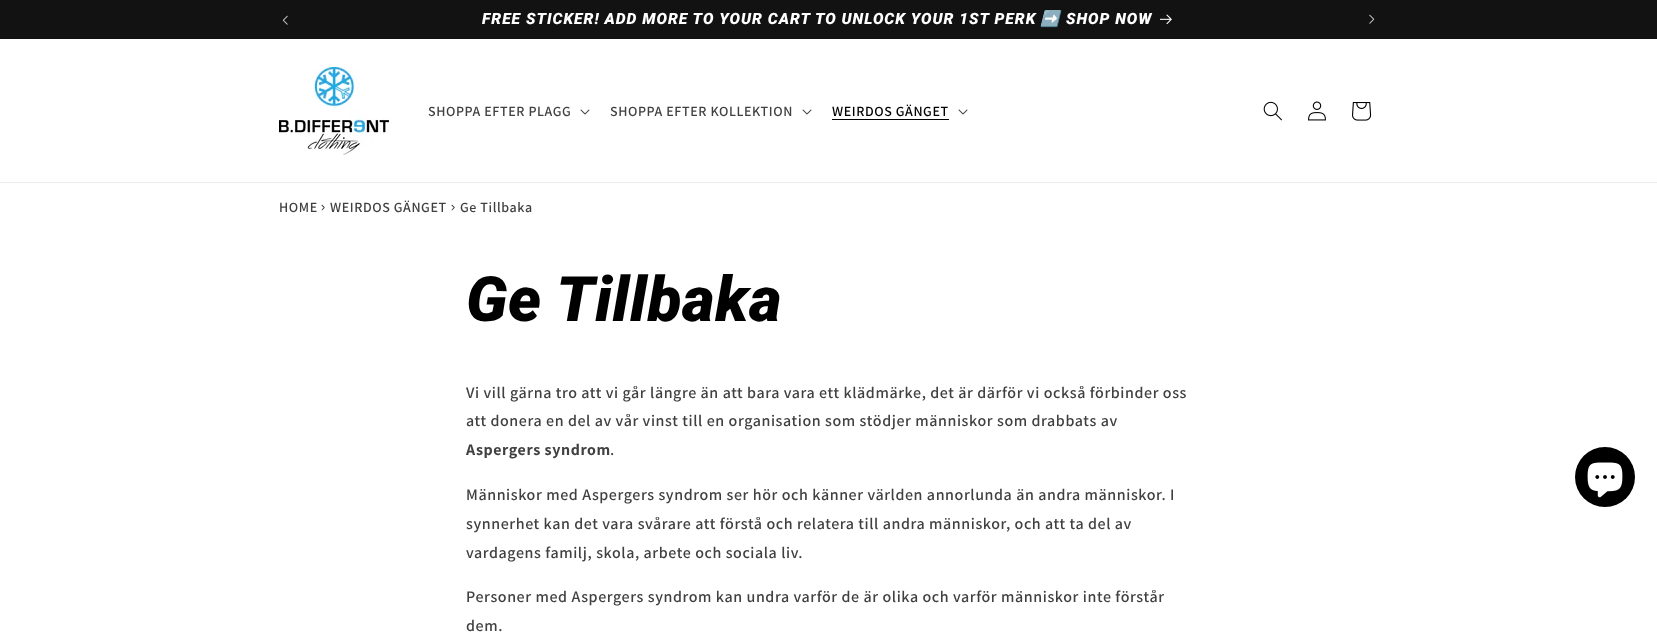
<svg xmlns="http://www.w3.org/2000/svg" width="1657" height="632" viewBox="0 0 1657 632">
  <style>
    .t1 { font: italic 900 15.6px Roboto; letter-spacing: 1px; fill: #fff; }
    .t2 { font: italic bold 15.6px Noto Color Emoji; letter-spacing: 1px; fill: #fff; }
    .t3 { font: 600 14px Assistant; letter-spacing: 0.6px; fill: #404040; }
    .t4 { font: 600 14px Assistant; letter-spacing: 0.6px; fill: #000; }
    .t5 { font: italic 900 62.5px Roboto; letter-spacing: 0.75px; fill: #000; }
    .t6 { font: 600 16px Assistant; letter-spacing: 0.6px; fill: #404040; }
    .t7 { font: bold 16px Assistant; letter-spacing: 0.6px; fill: #404040; }
  </style>
  <rect width="100%" height="100%" fill="#fff"/>
  <rect x="0" y="0" width="1657" height="39" fill="#121212"/>
  <image x="282" y="15" width="6" height="10" href="images/1.png"/>
  <text x="482" y="24" class="t1">FREE STICKER! ADD MORE TO YOUR CART TO UNLOCK YOUR 1ST PERK</text>
  <text x="1040" y="24" class="t2">➡️</text>
  <text x="1066" y="24" class="t1">SHOP NOW</text>
  <image x="1160" y="14" width="12" height="10" href="images/2.png"/>
  <image x="1369" y="14" width="6" height="10" href="images/3.png"/>
  <rect x="0" y="182" width="1657" height="1" fill="#ebebeb"/>
  <image x="279" y="67" width="110" height="88" href="images/4.png"/>
  <text x="428" y="116" class="t3">SHOPPA EFTER PLAGG</text>
  <image x="580" y="109" width="10" height="6" href="images/5.png"/>
  <text x="610" y="116" class="t3">SHOPPA EFTER KOLLEKTION</text>
  <image x="802" y="109" width="10" height="6" href="images/5.png"/>
  <text x="832" y="116" class="t4">WEIRDOS GÄNGET</text>
  <rect x="832" y="119" width="117" height="1" fill="#000"/>
  <image x="958" y="109" width="10" height="6" href="images/5.png"/>
  <image x="1263" y="101" width="19" height="20" href="images/6.png"/>
  <image x="1308" y="101" width="18" height="20" href="images/7.png"/>
  <image x="1352" y="102" width="20" height="19" href="images/8.png"/>
  <text x="279" y="212" class="t3">HOME</text>
  <path d="M322 204.5L325 207.5H323.5L321.5 205.5Z" fill="#404040"/>
  <path d="M325 207.5L322 210.5L321.5 210L323.5 207.5Z" fill="#404040"/>
  <text x="330" y="212" class="t3">WEIRDOS GÄNGET</text>
  <path d="M452 204.5L455 207.5H453.5L451.5 205.5Z" fill="#404040"/>
  <path d="M455 207.5L452 210.5L451.5 210L453.5 207.5Z" fill="#404040"/>
  <text x="460" y="212" class="t3">Ge Tillbaka</text>
  <text x="466" y="321" class="t5">Ge Tillbaka</text>
  <text x="466" y="398" class="t6">Vi vill gärna tro att vi går längre än att bara vara ett klädmärke, det är därför vi också förbinder oss</text>
  <text x="466" y="426" class="t6">att donera en del av vår vinst till en organisation som stödjer människor som drabbats av</text>
  <text x="466" y="455" class="t7">Aspergers syndrom</text>
  <text x="610" y="455" class="t6">.</text>
  <text x="466" y="500" class="t6">Människor med Aspergers syndrom ser hör och känner världen annorlunda än andra människor. I</text>
  <text x="466" y="529" class="t6">synnerhet kan det vara svårare att förstå och relatera till andra människor, och att ta del av</text>
  <text x="466" y="558" class="t6">vardagens familj, skola, arbete och sociala liv.</text>
  <text x="466" y="602" class="t6">Personer med Aspergers syndrom kan undra varför de är olika och varför människor inte förstår</text>
  <text x="466" y="631" class="t6">dem.</text>
  <circle cx="1605" cy="477" r="30" fill="#000"/>
  <image x="1587" y="462" width="36" height="36" href="images/9.png"/>
</svg>
